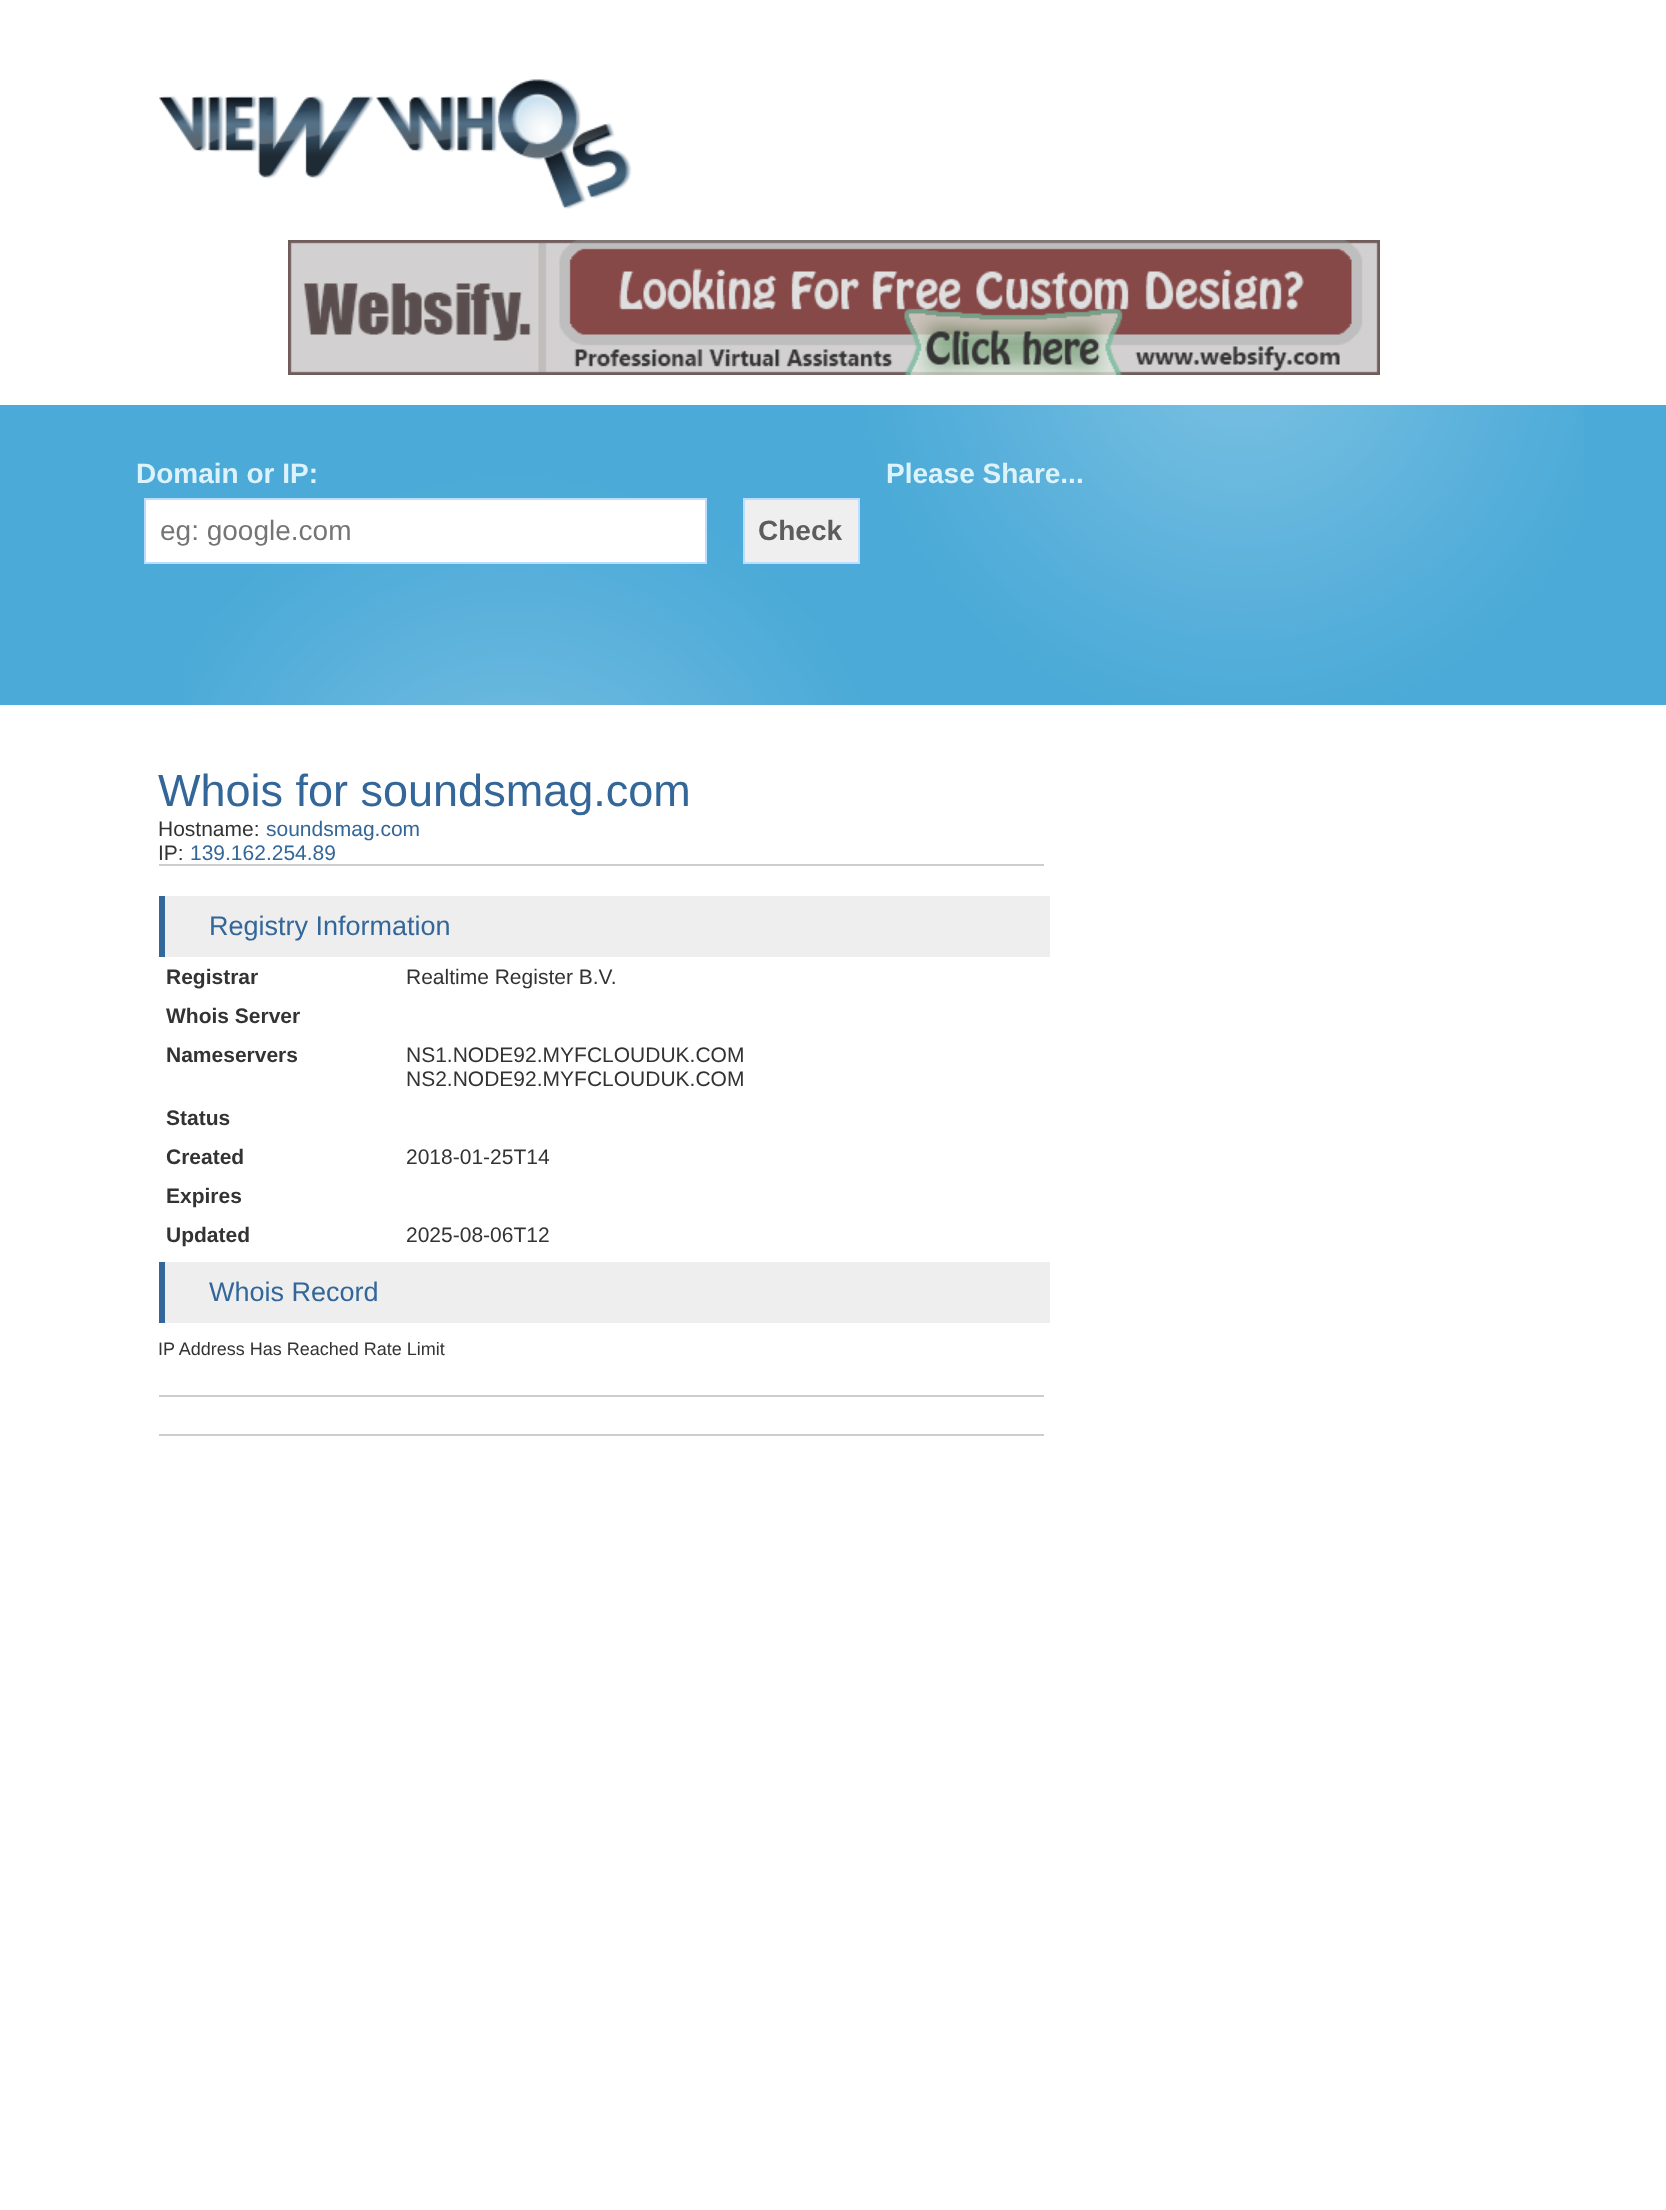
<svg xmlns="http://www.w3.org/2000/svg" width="1666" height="2210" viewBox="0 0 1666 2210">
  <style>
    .t1 { font: bold 28px Liberation Sans; fill: #ddf3fb; }
    .t2 { font: 28px Liberation Sans; fill: #757575; }
    .t3 { font: bold 28px Liberation Sans; fill: #5d5d5d; }
    .t4 { font: 45px Liberation Sans; fill: #369; }
    .t5 { font: 21px Liberation Sans; fill: #333; }
    .t6 { font: 21px Liberation Sans; fill: #369; }
    .t7 { font: 27px Liberation Sans; fill: #369; }
    .t8 { font: bold 21px Liberation Sans; fill: #333; }
    .t9 { font: 18px Liberation Sans; fill: #333; }
  </style>
  <rect width="100%" height="100%" fill="#fff"/>
  <image x="159" y="79" width="473" height="130" href="images/1.png"/>
  <image x="288" y="240" width="1092" height="135" href="images/2.png"/>
  <rect x="0" y="405" width="1666" height="300" fill="#4baad8"/>
  <image x="191" y="405" width="1393" height="300" href="images/3.png"/>
  <text x="136" y="483" class="t1">Domain or IP:</text>
  <rect x="145" y="499" width="561" height="64" fill="#fff" stroke="#bdf" stroke-width="2"/>
  <text x="160" y="540" class="t2">eg: google.com</text>
  <rect x="744" y="499" width="115" height="64" fill="#efefef" stroke="#bdf" stroke-width="2"/>
  <text x="758" y="540" class="t3">Check</text>
  <text x="886" y="483" class="t1">Please Share...</text>
  <rect x="159" y="864" width="885" height="2" fill="#cdcdcd"/>
  <text x="158" y="806" class="t4">Whois for soundsmag.com</text>
  <text x="158" y="836" class="t5">Hostname:</text>
  <text x="266" y="836" class="t6">soundsmag.com</text>
  <text x="158" y="860" class="t5">IP:</text>
  <text x="190" y="860" class="t6">139.162.254.89</text>
  <rect x="159" y="1434" width="885" height="2" fill="#cdcdcd"/>
  <rect x="165" y="896" width="885" height="61" fill="#eee"/>
  <rect x="159" y="896" width="6" height="61" fill="#369"/>
  <text x="209" y="935" class="t7">Registry Information</text>
  <text x="166" y="984" class="t8">Registrar</text>
  <text x="406" y="984" class="t5">Realtime Register B.V.</text>
  <text x="166" y="1023" class="t8">Whois Server</text>
  <text x="166" y="1062" class="t8">Nameservers</text>
  <text x="406" y="1062" class="t5">NS1.NODE92.MYFCLOUDUK.COM</text>
  <text x="406" y="1086" class="t5">NS2.NODE92.MYFCLOUDUK.COM</text>
  <text x="166" y="1125" class="t8">Status</text>
  <text x="166" y="1164" class="t8">Created</text>
  <text x="406" y="1164" class="t5">2018-01-25T14</text>
  <text x="166" y="1203" class="t8">Expires</text>
  <text x="166" y="1242" class="t8">Updated</text>
  <text x="406" y="1242" class="t5">2025-08-06T12</text>
  <rect x="159" y="1395" width="885" height="2" fill="#cdcdcd"/>
  <rect x="165" y="1262" width="885" height="61" fill="#eee"/>
  <rect x="159" y="1262" width="6" height="61" fill="#369"/>
  <text x="209" y="1301" class="t7">Whois Record</text>
  <text x="158" y="1355" class="t9">IP Address Has Reached Rate Limit</text>
</svg>
